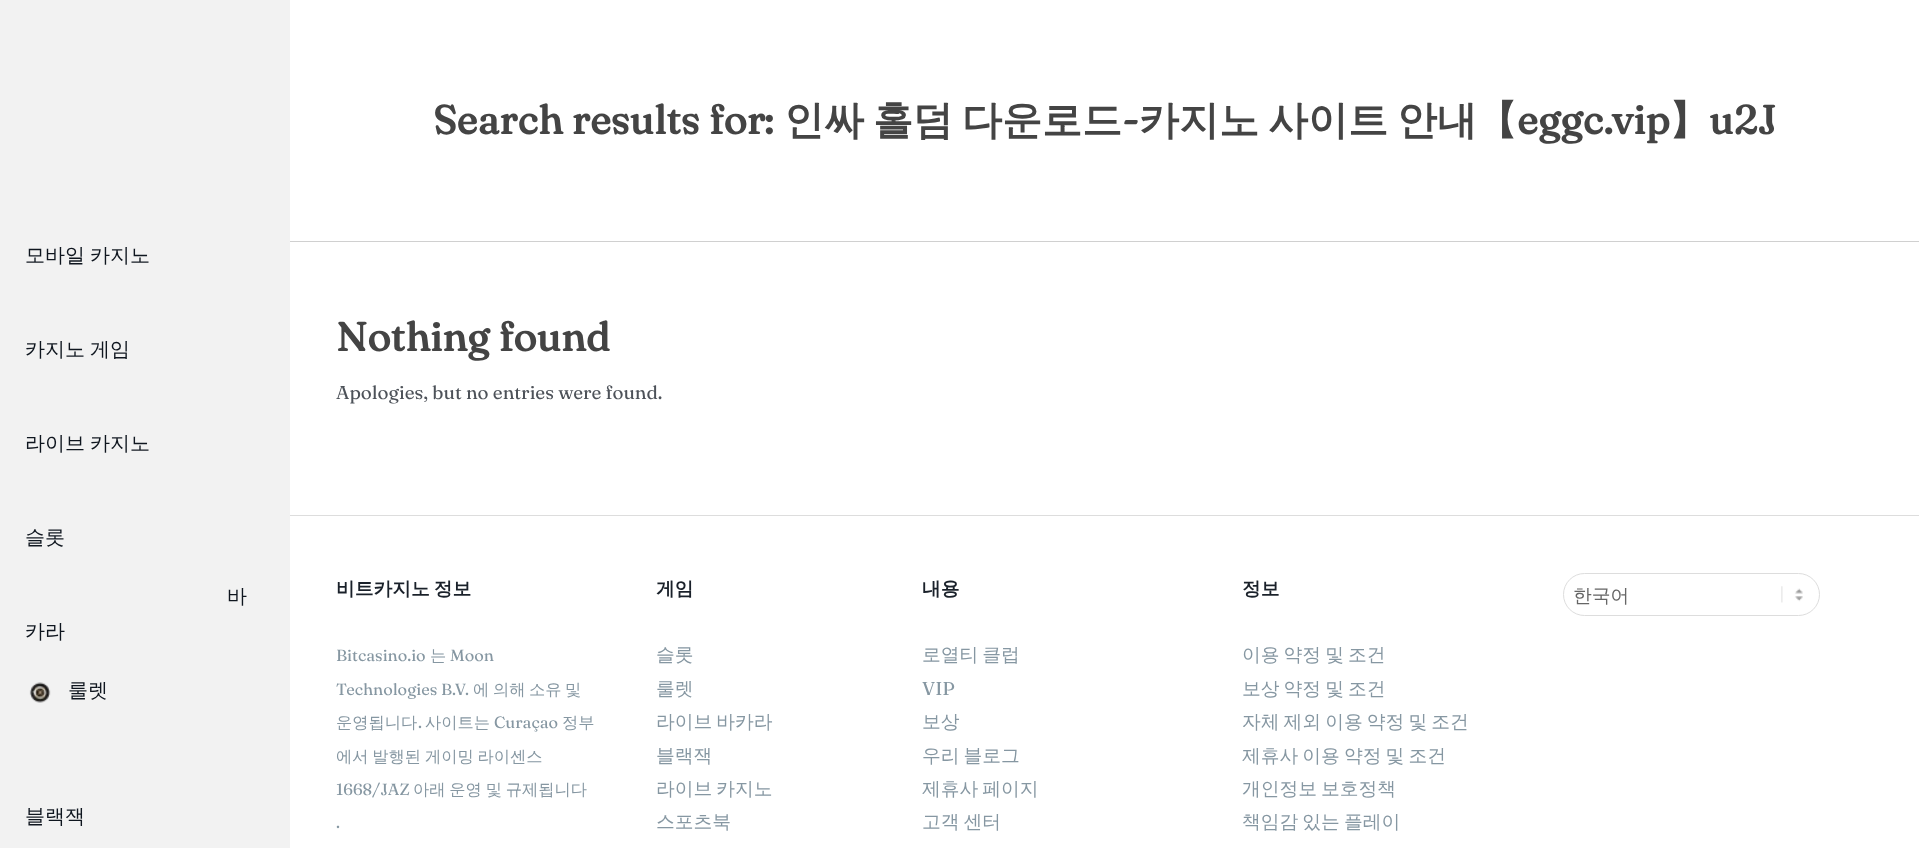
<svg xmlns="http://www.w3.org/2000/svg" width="1919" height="848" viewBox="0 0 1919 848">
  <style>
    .t1 { font: 500 20px WenQuanYi Zen Hei; fill: #0f161f; }
    .t2 { font: bold 40px Fraunces; fill: #444; }
    .t3 { font: bold 40px WenQuanYi Zen Hei; fill: #444; }
    .t4 { font: 18.75px Fraunces; fill: #4d5259; }
    .t5 { font: bold 18.75px WenQuanYi Zen Hei; fill: #1a212a; }
    .t6 { font: 16.25px Fraunces; fill: #8697a2; }
    .t7 { font: 500 16.25px WenQuanYi Zen Hei; fill: #8697a2; }
    .t8 { font: 500 18.75px WenQuanYi Zen Hei; fill: #8697a2; }
    .t9 { font: 18.75px Fraunces; fill: #8697a2; }
    .t10 { font: 500 18.75px WenQuanYi Zen Hei; fill: #666; }
  </style>
  <rect width="100%" height="100%" fill="#f2f2f2"/>
  <text x="25" y="262" word-spacing="-1" class="t1">모바일 카지노</text>
  <text x="25" y="356" word-spacing="-1" class="t1">카지노 게임</text>
  <text x="25" y="450" word-spacing="-1" class="t1">라이브 카지노</text>
  <text x="25" y="544" class="t1">슬롯</text>
  <text x="227" y="603" class="t1">바</text>
  <text x="25" y="638" class="t1">카라</text>
  <image x="29" y="682" width="22" height="21" href="images/1.png"/>
  <text x="68" y="697" class="t1">룰렛</text>
  <text x="25" y="823" class="t1">블랙잭</text>
  <rect x="290" y="0" width="1629" height="515" fill="#fff"/>
  <rect x="290" y="241" width="1629" height="1" fill="#d0d0d0"/>
  <text x="433" y="134" class="t2">Search results for:</text>
  <text x="784" y="134" class="t3">인싸</text>
  <text x="873" y="134" class="t3">홀덤</text>
  <text x="962" y="134" class="t3">다운로드</text>
  <text x="1122" y="134" class="t2">-</text>
  <text x="1139" y="134" class="t3">카지노</text>
  <text x="1268" y="134" class="t3">사이트</text>
  <text x="1397" y="134" class="t3">안내【</text>
  <text x="1517" y="134" class="t2">eggc.vip</text>
  <text x="1669" y="134" class="t3">】</text>
  <text x="1709" y="134" class="t2">u2J</text>
  <text x="336" y="351" class="t2">Nothing found</text>
  <text x="336" y="399" class="t4">Apologies, but no entries were found.</text>
  <rect x="290" y="516" width="1629" height="332" fill="#fff"/>
  <rect x="290" y="515" width="1629" height="1" fill="#ddd"/>
  <text x="336" y="595" word-spacing="-1.5" class="t5">비트카지노 정보</text>
  <text x="336" y="661" class="t6">Bitcasino.io</text>
  <text x="430" y="661" class="t7">는</text>
  <text x="450" y="661" class="t6">Moon</text>
  <text x="336" y="695" class="t6">Technologies B.V.</text>
  <text x="473" y="695" class="t7">에</text>
  <text x="493" y="695" class="t7">의해</text>
  <text x="529" y="695" class="t7">소유</text>
  <text x="565" y="695" class="t7">및</text>
  <text x="336" y="728" class="t7">운영됩니다</text>
  <text x="418" y="728" class="t6">.</text>
  <text x="425" y="728" class="t7">사이트는</text>
  <text x="494" y="728" class="t6">Curaçao</text>
  <text x="562" y="728" class="t7">정부</text>
  <text x="336" y="762" word-spacing="-1" class="t7">에서 발행된 게이밍 라이센스</text>
  <text x="336" y="795" class="t6">1668/JAZ</text>
  <text x="413" y="795" word-spacing="-1" class="t7">아래 운영 및 규제됩니다</text>
  <text x="336" y="828" class="t6">.</text>
  <text x="656" y="595" class="t5">게임</text>
  <text x="656" y="661" class="t8">슬롯</text>
  <text x="656" y="695" class="t8">룰렛</text>
  <text x="656" y="728" word-spacing="-1.5" class="t8">라이브 바카라</text>
  <text x="656" y="762" class="t8">블랙잭</text>
  <text x="656" y="795" word-spacing="-1.5" class="t8">라이브 카지노</text>
  <text x="656" y="828" class="t8">스포츠북</text>
  <text x="922" y="595" class="t5">내용</text>
  <text x="922" y="661" word-spacing="-1.5" class="t8">로열티 클럽</text>
  <text x="922" y="695" class="t9">VIP</text>
  <text x="922" y="728" class="t8">보상</text>
  <text x="922" y="762" word-spacing="-1.5" class="t8">우리 블로그</text>
  <text x="922" y="795" word-spacing="-1.5" class="t8">제휴사 페이지</text>
  <text x="922" y="828" word-spacing="-1.5" class="t8">고객 센터</text>
  <text x="1242" y="595" class="t5">정보</text>
  <text x="1242" y="661" word-spacing="-1.5" class="t8">이용 약정 및 조건</text>
  <text x="1242" y="695" word-spacing="-1.5" class="t8">보상 약정 및 조건</text>
  <text x="1242" y="728" word-spacing="-1.5" class="t8">자체 제외 이용 약정 및 조건</text>
  <text x="1242" y="762" word-spacing="-1.5" class="t8">제휴사 이용 약정 및 조건</text>
  <text x="1242" y="795" word-spacing="-1.5" class="t8">개인정보 보호정책</text>
  <text x="1242" y="828" word-spacing="-1.5" class="t8">책임감 있는 플레이</text>
  <image x="1781" y="586" width="22" height="17" href="images/2.png"/>
  <rect x="1563.5" y="573.5" width="256" height="42" rx="21" fill="none" stroke="#ddd"/>
  <text x="1573" y="602" class="t10">한국어</text>
</svg>
